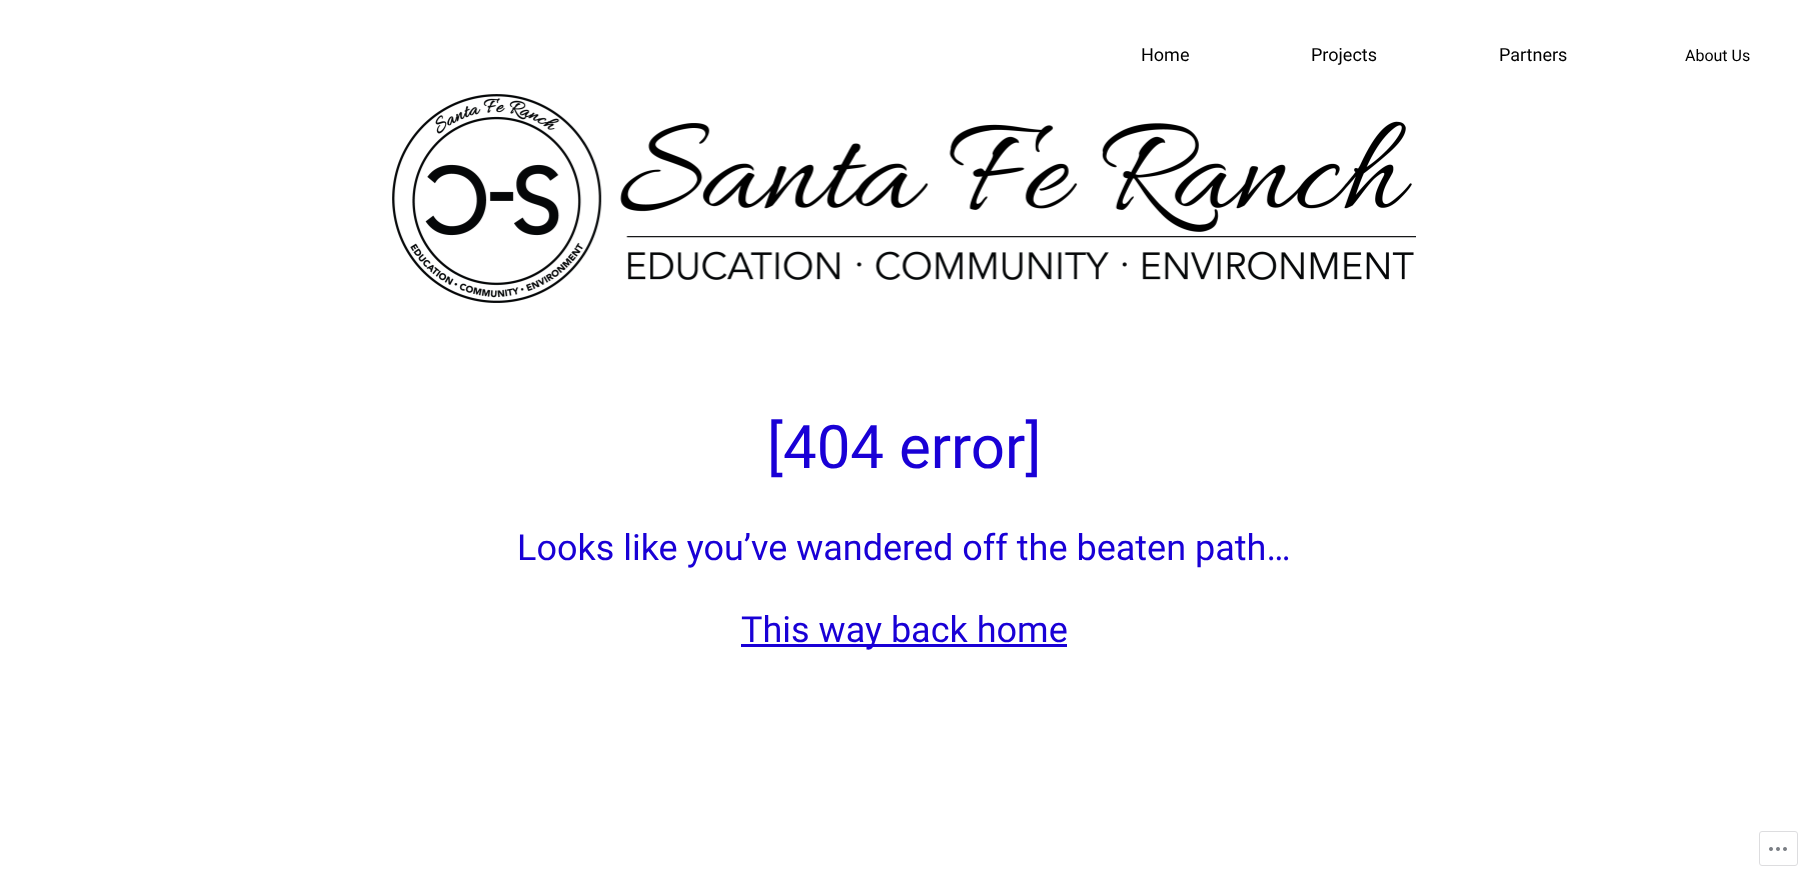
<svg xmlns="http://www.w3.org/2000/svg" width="1808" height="876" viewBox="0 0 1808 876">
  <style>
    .t1 { font: 18px Roboto; fill: #000; }
    .t2 { font: 16px Roboto; fill: #000; }
    .t3 { font: 60px Roboto; fill: #1900d6; }
    .t4 { font: 36px Roboto; fill: #1900d6; }
  </style>
  <rect width="100%" height="100%" fill="#fff"/>
  <text x="1141" y="61" class="t1">Home</text>
  <text x="1311" y="61" class="t1">Projects</text>
  <text x="1499" y="61" class="t1">Partners</text>
  <text x="1685" y="61" class="t2">About Us</text>
  <image x="392" y="94" width="1024" height="209" href="images/1.png"/>
  <text x="767" y="468" class="t3">[404 error]</text>
  <text x="517" y="560" class="t4">Looks like you’ve wandered off the beaten path…</text>
  <rect x="741" y="644" width="326" height="3" fill="#1900d6"/>
  <text x="741" y="642" class="t4">This way back home</text>
  <rect x="1759.5" y="831.5" width="38" height="34" rx="2.5" fill="none" stroke="#dddddf"/>
  <image x="1769" y="847" width="18" height="4" href="images/2.png"/>
</svg>
